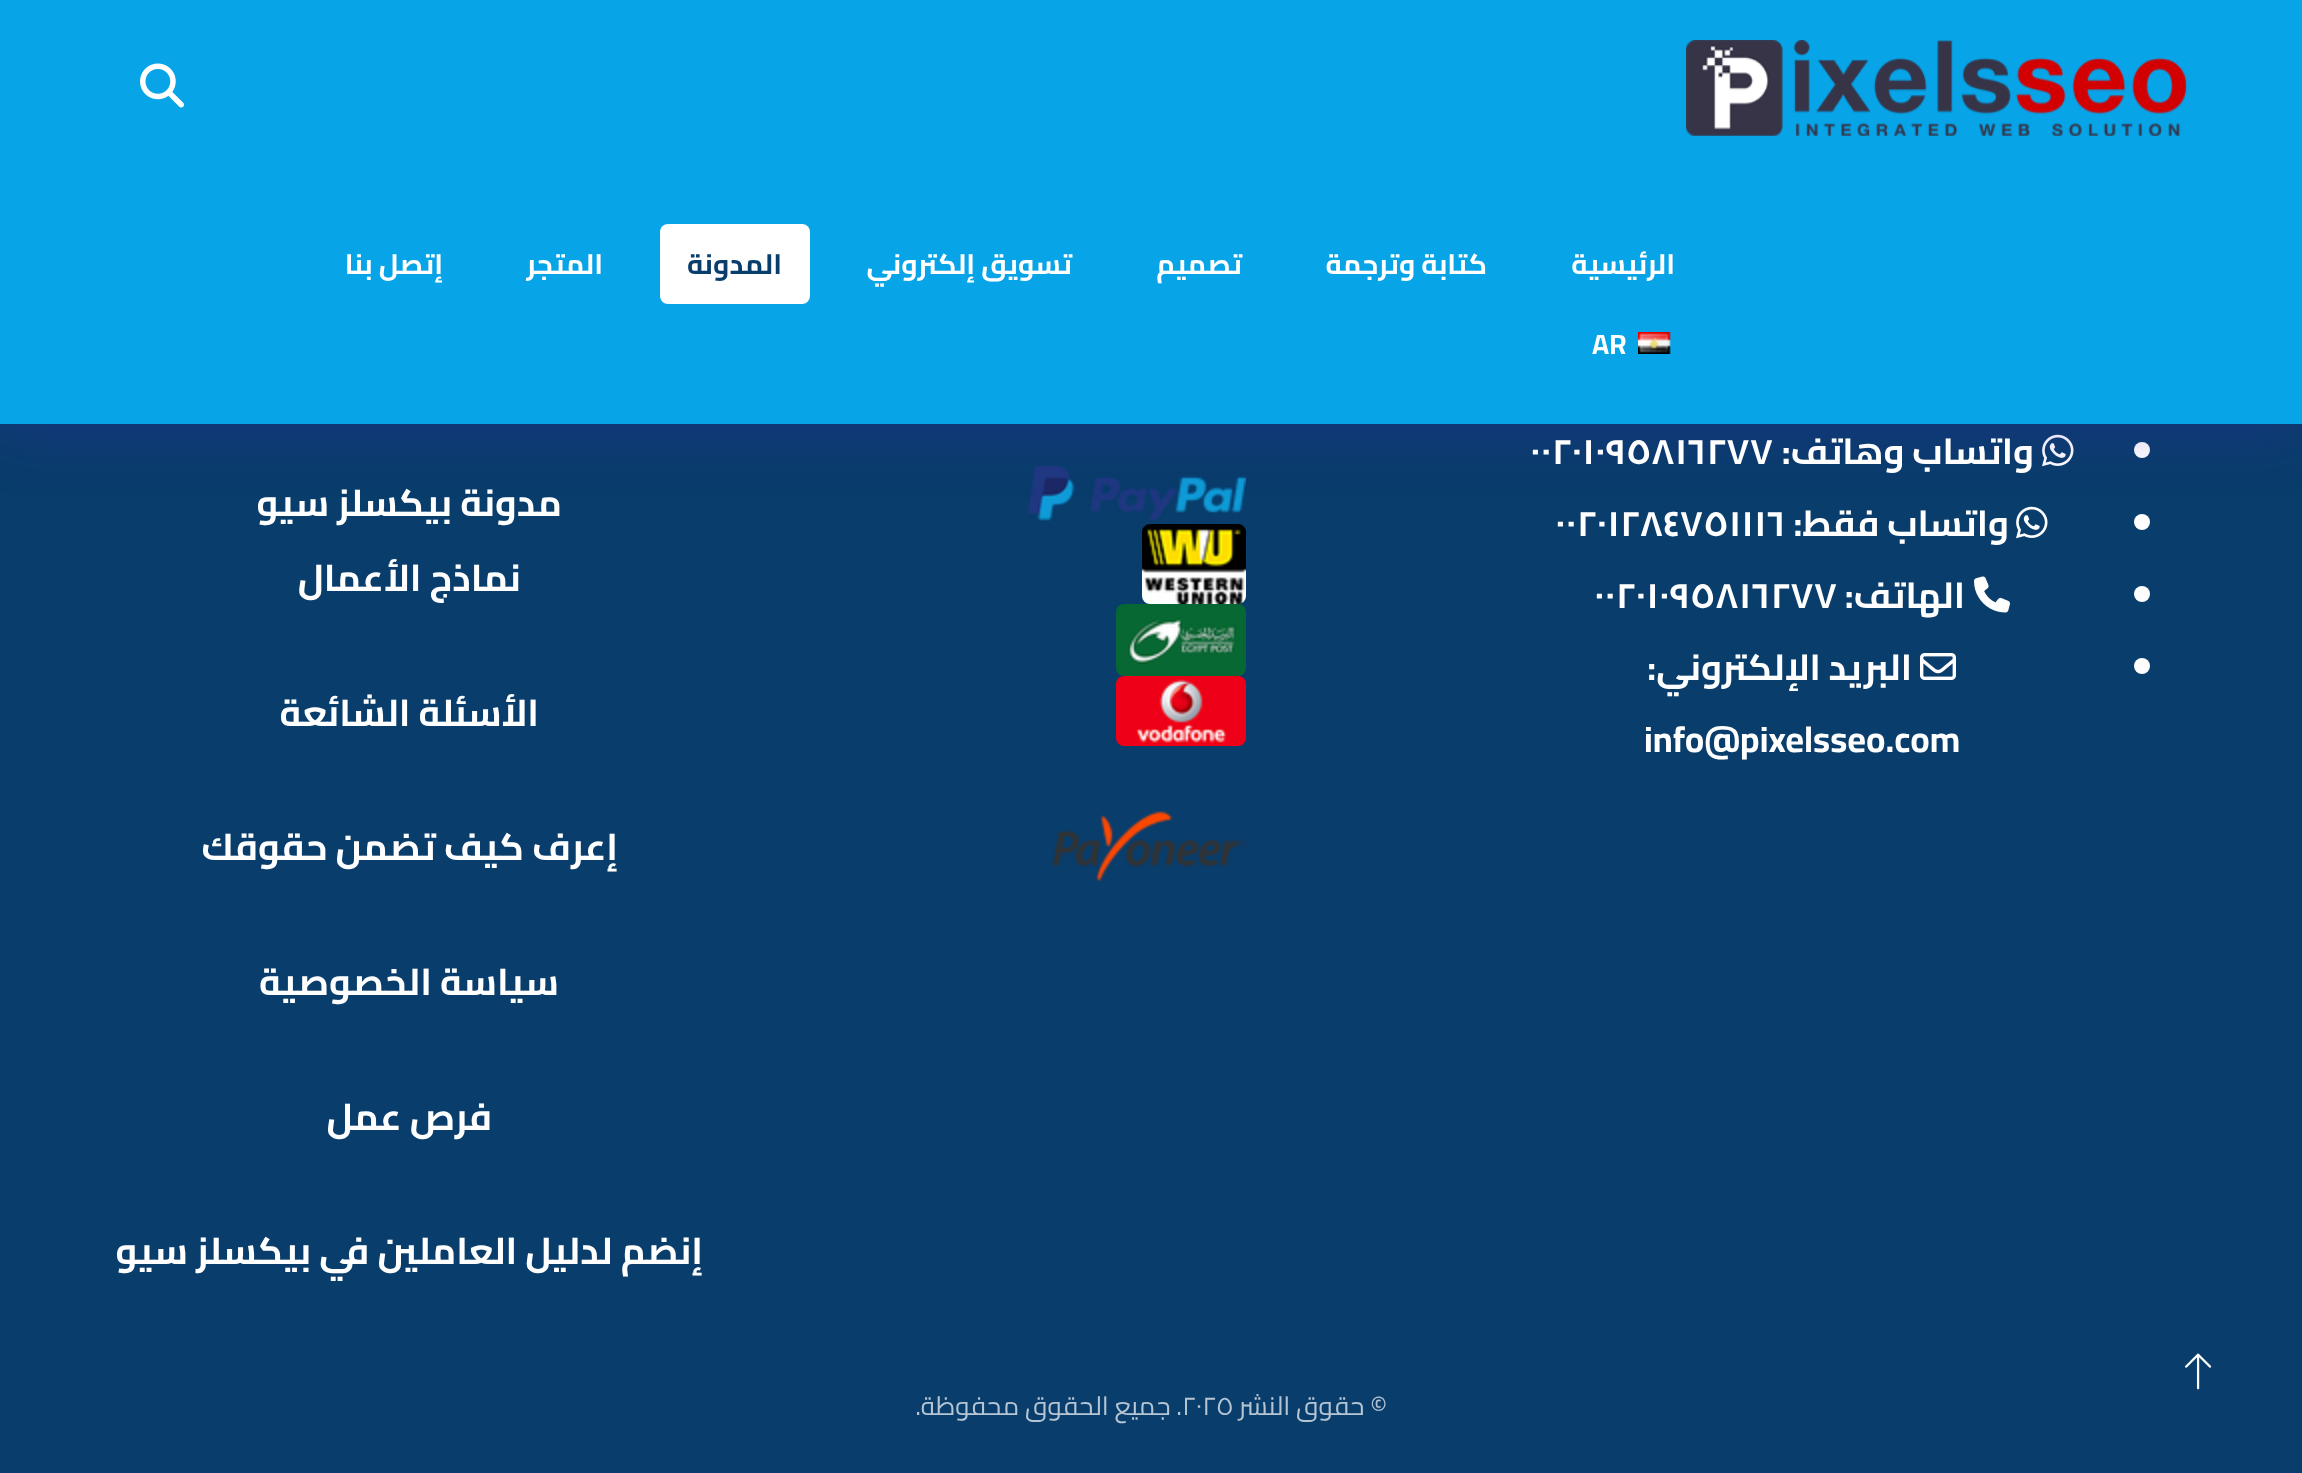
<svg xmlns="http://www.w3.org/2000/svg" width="2302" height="1473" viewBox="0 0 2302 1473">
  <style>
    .t1 { font: bold 28px Cairo; direction: rtl; fill: #fff; }
    .t2 { font: bold 28px Cairo; direction: rtl; fill: #093d6b; }
    .t3 { font: bold 28px Cairo; fill: #fff; }
    .t4 { font: bold 36px Cairo; direction: rtl; fill: #fff; }
    .t5 { font: bold 36px Cairo; fill: #fff; }
    .t6 { font: bold 37.3px Cairo; direction: rtl; fill: #fff; }
    .t7 { font: 26px Cairo; direction: rtl; fill: #b5c5d3; }
    .t8 { font: 26px Cairo; fill: #b5c5d3; }
  </style>
  <rect width="100%" height="100%" fill="#093d6b"/>
  <image x="2185" y="1353" width="27" height="37" href="images/1.png"/>
  <circle cx="2142" cy="450" r="8" fill="#fff"/>
  <image x="2042" y="434" width="32" height="33" href="images/5.png"/>
  <circle cx="2142" cy="522" r="8" fill="#fff"/>
  <image x="2016" y="506" width="32" height="33" href="images/5.png"/>
  <image x="1028" y="466" width="218" height="55" href="images/8.png"/>
  <image x="1142" y="524" width="104" height="80" href="images/9.png"/>
  <rect x="0" y="10" width="2302" height="424" fill="#3f1fc13d" filter="blur(30px)"/>
  <rect x="0" y="0" width="2302" height="424" fill="#07a4e8"/>
  <image x="1686" y="40" width="501" height="96" href="images/2.png"/>
  <image x="140" y="63" width="44" height="45" href="images/3.png"/>
  <text x="1675" y="274" class="t1">الرئيسية</text>
  <text x="1487" y="274" class="t1">كتابة وترجمة</text>
  <text x="1242" y="274" class="t1">تصميم</text>
  <text x="1072" y="274" class="t1">تسويق إلكتروني</text>
  <rect x="660" y="224" width="150" height="80" rx="8" fill="#fff"/>
  <text x="782" y="274" class="t2">المدونة</text>
  <text x="603" y="274" class="t1">المتجر</text>
  <text x="443" y="274" class="t1">إتصل بنا</text>
  <image x="1638" y="332" width="33" height="22" href="images/4.png"/>
  <text x="1592" y="354" class="t3">AR</text>
  <text x="2034" y="464" class="t4">واتساب وهاتف:</text>
  <text x="1530" y="464" class="t5">٠٠٢٠١٠٩٥٨١٦٢٧٧</text>
  <text x="2009" y="536" class="t4">واتساب فقط:</text>
  <text x="1555" y="536" class="t5">٠٠٢٠١٢٨٤٧٥١١١٦</text>
  <circle cx="2142" cy="594" r="8" fill="#fff"/>
  <image x="1974" y="576" width="36" height="37" href="images/6.png"/>
  <text x="1965" y="608" class="t4">الهاتف:</text>
  <text x="1594" y="608" class="t5">٠٠٢٠١٠٩٥٨١٦٢٧٧</text>
  <circle cx="2142" cy="666" r="8" fill="#fff"/>
  <image x="1920" y="653" width="36" height="27" href="images/7.png"/>
  <text x="1912" y="680" class="t4">البريد الإلكتروني:</text>
  <text x="1644" y="752" class="t5">info@pixelsseo.com</text>
  <image x="1116" y="604" width="130" height="72" href="images/10.png"/>
  <image x="1116" y="676" width="130" height="70" href="images/11.png"/>
  <image x="1051" y="811" width="195" height="71" href="images/12.png"/>
  <text x="562" y="516" class="t6">مدونة بيكسلز سيو</text>
  <text x="521" y="591" class="t6">نماذج الأعمال</text>
  <text x="539" y="726" class="t6">الأسئلة الشائعة</text>
  <text x="618" y="860" class="t6">إعرف كيف تضمن حقوقك</text>
  <text x="559" y="995" class="t6">سياسة الخصوصية</text>
  <text x="492" y="1130" class="t6">فرص عمل</text>
  <text x="703" y="1264" class="t6">إنضم لدليل العاملين في بيكسلز سيو</text>
  <text x="1387" y="1415" class="t7">© حقوق النشر</text>
  <text x="1182" y="1415" class="t8">٢٠٢٥</text>
  <text x="1182" y="1415" class="t7">. جميع الحقوق محفوظة.</text>
</svg>
